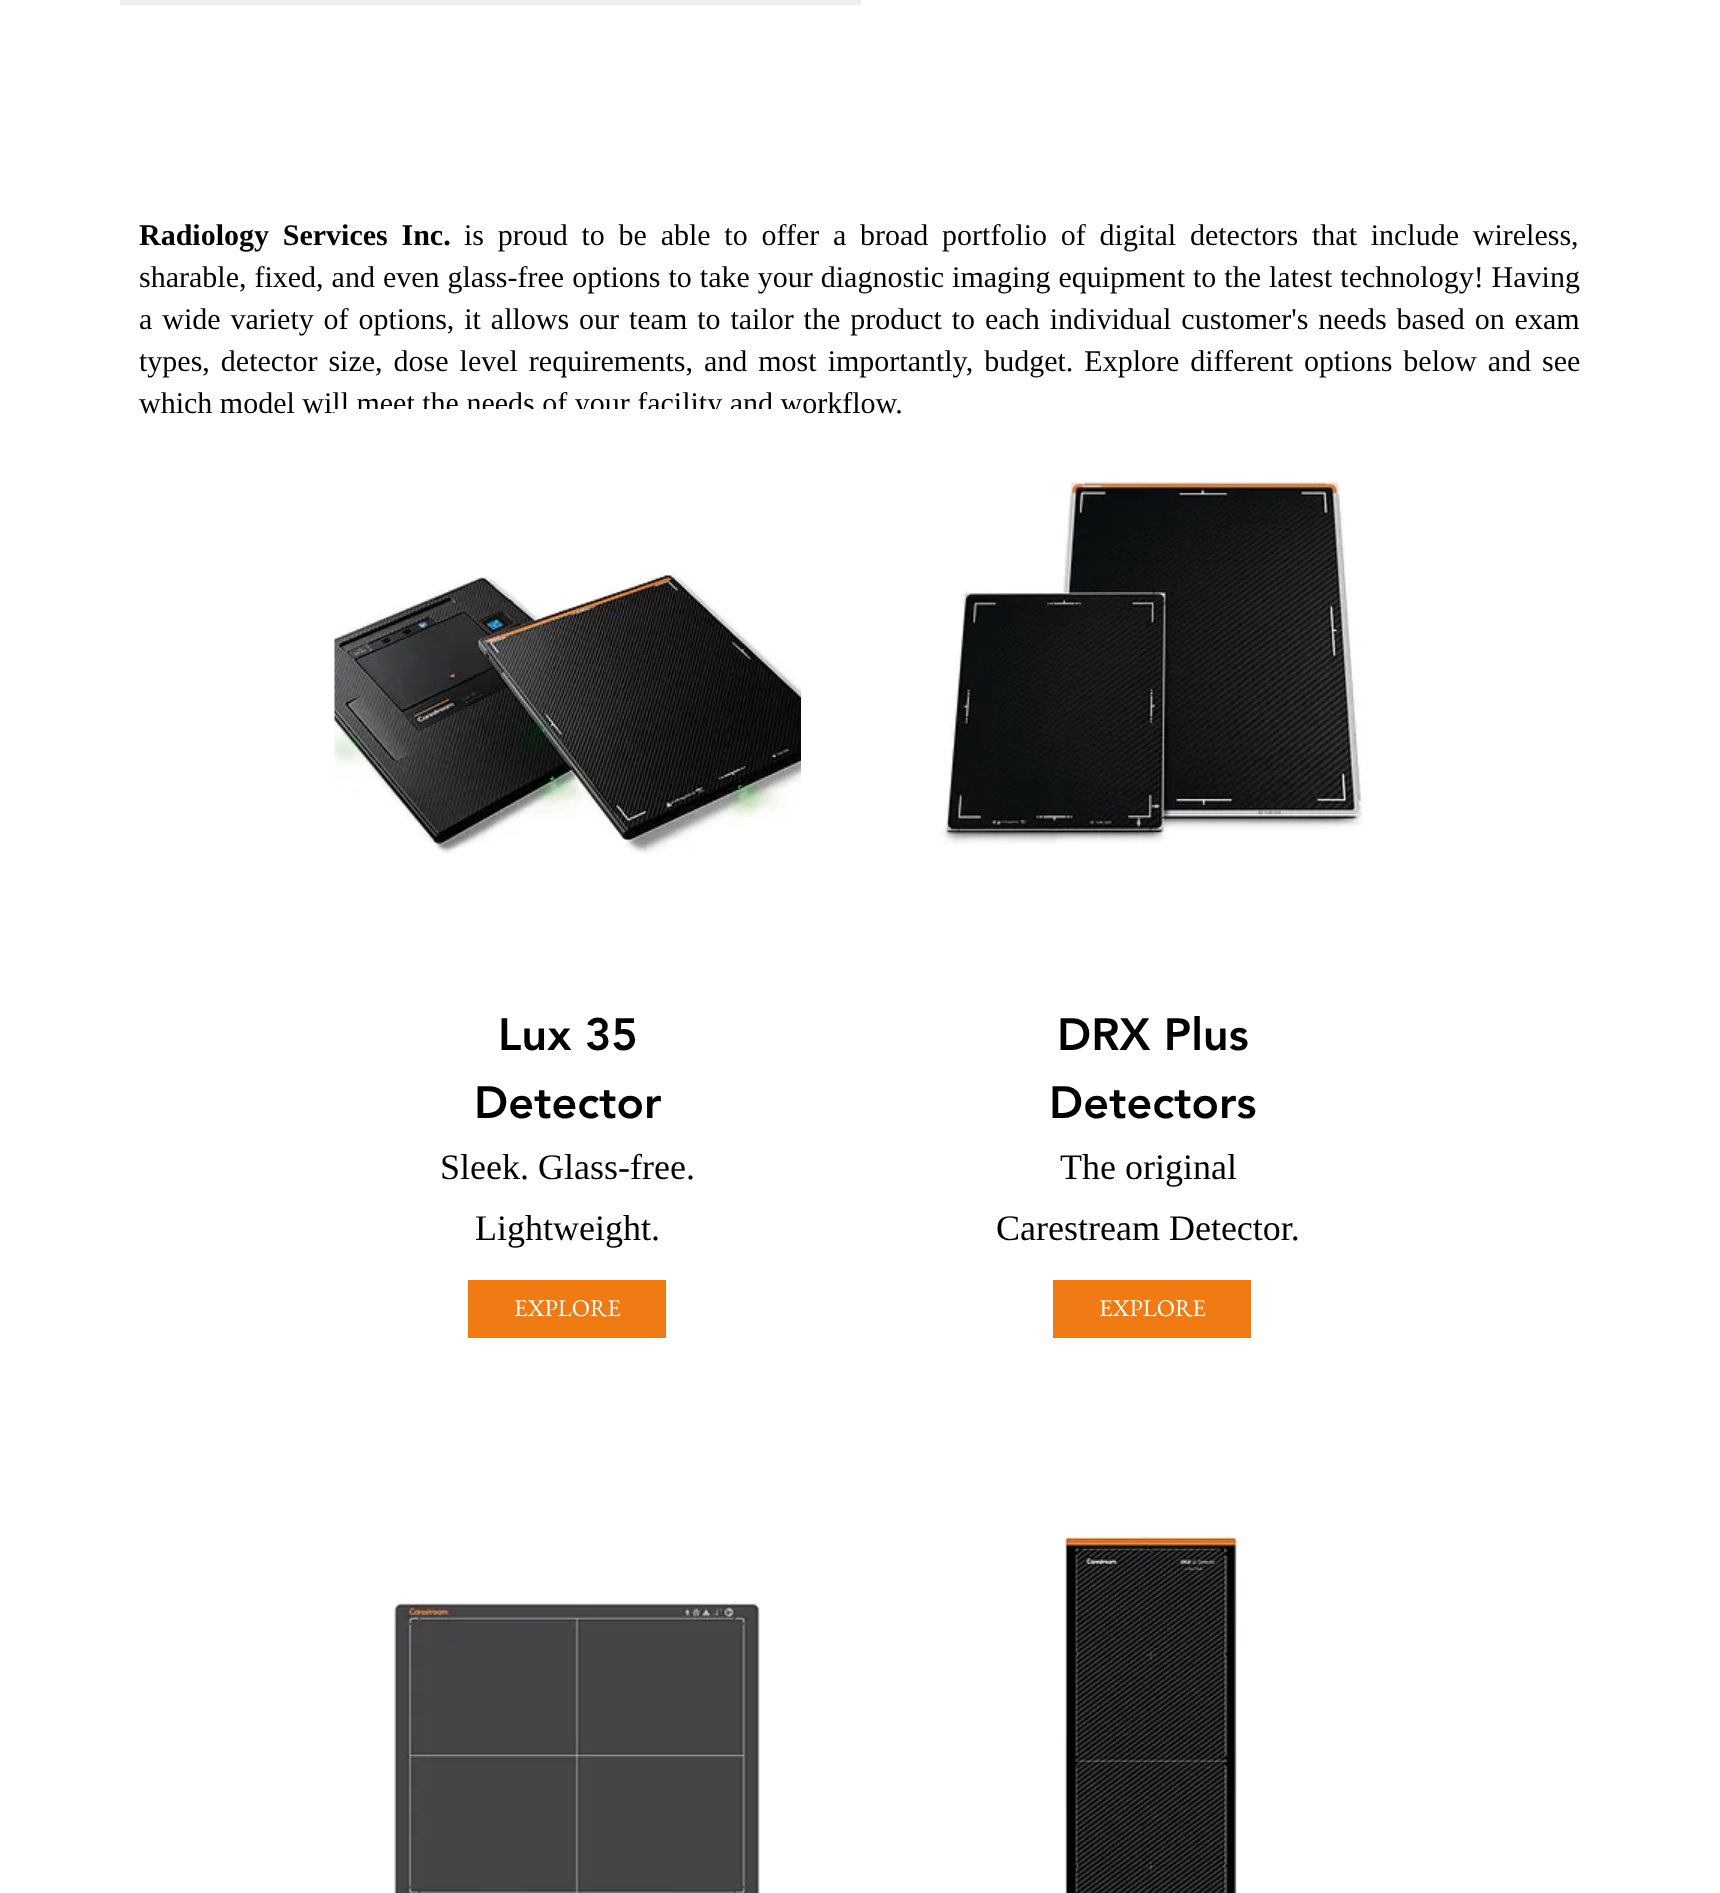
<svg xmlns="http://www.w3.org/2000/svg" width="1720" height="1893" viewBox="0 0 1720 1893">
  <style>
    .t1 { font: bold 30px Liberation Serif; fill: #000; }
    .t2 { font: 30px Liberation Serif; fill: #000; }
    .t3 { font: 900 45px 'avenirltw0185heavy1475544'; fill: #000; }
    .t4 { font: 36px Liberation Serif; fill: #000; }
    .t5 { font: 24px EB Garamond; fill: #fff; }
  </style>
  <rect width="100%" height="100%" fill="#fff"/>
  <rect x="120" y="0" width="741" height="5" fill="#eeeded"/>
  <text x="139" y="245" word-spacing="6.25" class="t1">Radiology Services Inc.</text>
  <text x="464" y="245" word-spacing="6.25" class="t2">is proud to be able to offer a broad portfolio of digital detectors that include wireless,</text>
  <text x="139" y="287" word-spacing="0.5" class="t2">sharable, fixed, and even glass-free options to take your diagnostic imaging equipment to the latest technology! Having</text>
  <text x="139" y="329" word-spacing="2.4" class="t2">a wide variety of options, it allows our team to tailor the product to each individual customer's needs based on exam</text>
  <text x="139" y="371" word-spacing="3.5" class="t2">types, detector size, dose level requirements, and most importantly, budget. Explore different options below and see</text>
  <text x="139" y="413" class="t2">which model will meet the needs of your facility and workflow.</text>
  <image x="334" y="409" width="467" height="445" href="images/1.png"/>
  <text x="498" y="1050" class="t3">Lux 35</text>
  <text x="474" y="1118" class="t3">Detector</text>
  <text x="440" y="1179" class="t4">Sleek. Glass-free.</text>
  <text x="475" y="1240" class="t4">Lightweight.</text>
  <rect x="468" y="1280" width="198" height="58" fill="#f07a13"/>
  <text x="514" y="1316" class="t5">EXPLORE</text>
  <image x="394" y="1602" width="366" height="291" href="images/2.png"/>
  <image x="941" y="481" width="423" height="364" href="images/3.png"/>
  <text x="1057" y="1050" class="t3">DRX Plus</text>
  <text x="1049" y="1118" class="t3">Detectors</text>
  <text x="1060" y="1179" class="t4">The original</text>
  <text x="996" y="1240" class="t4">Carestream Detector.</text>
  <rect x="1053" y="1280" width="198" height="58" fill="#f07a13"/>
  <text x="1099" y="1316" class="t5">EXPLORE</text>
  <image x="1063" y="1535" width="181" height="358" href="images/4.png"/>
</svg>
